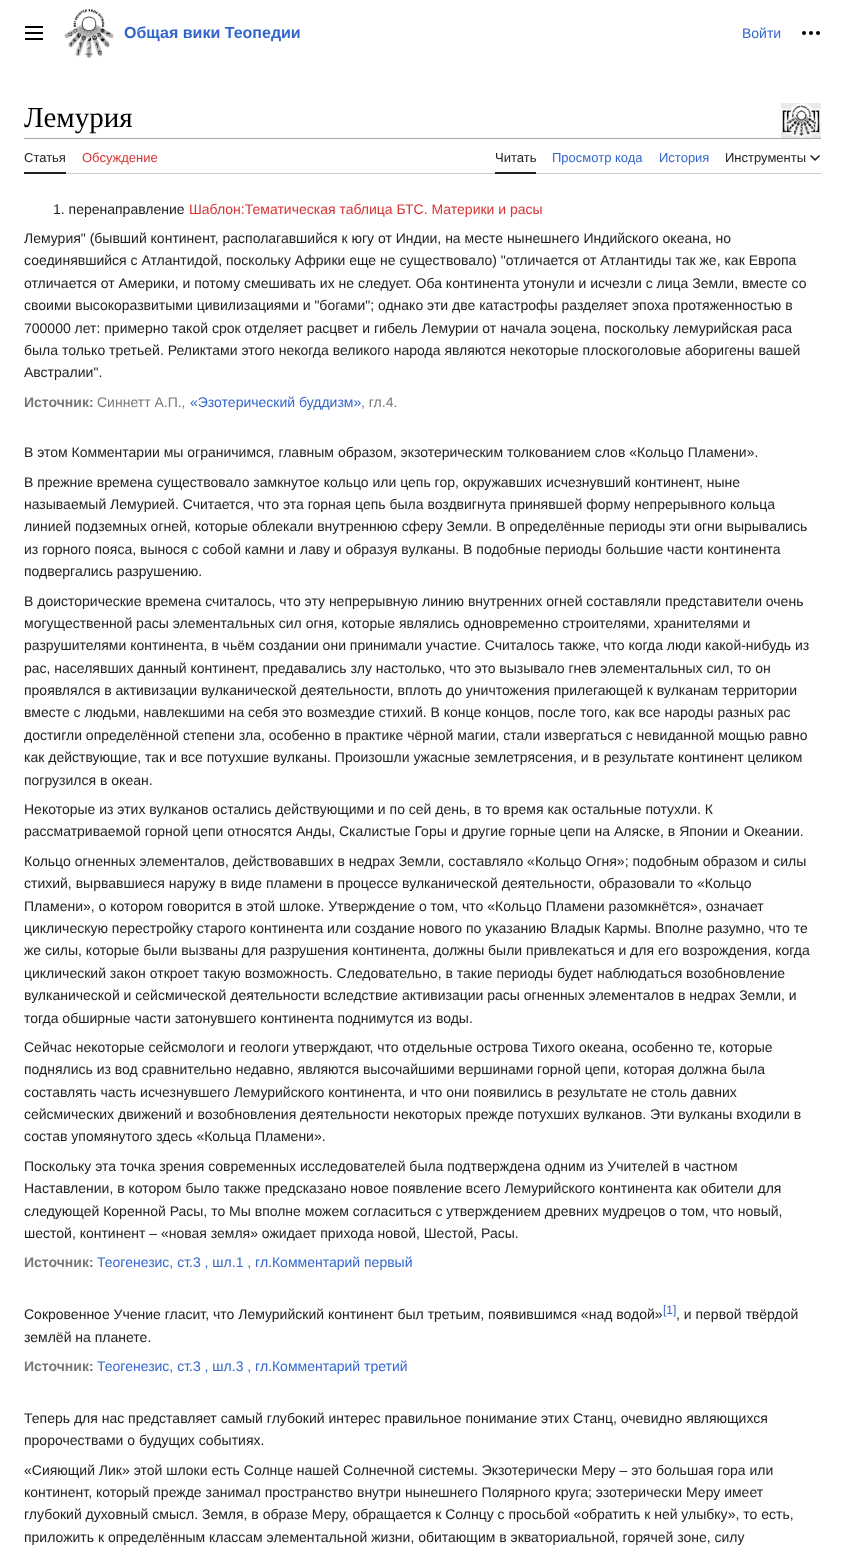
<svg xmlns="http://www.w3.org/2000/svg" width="845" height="1551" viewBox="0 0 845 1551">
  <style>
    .t1 { font: bold 16px Liberation Sans; fill: #36c; }
    .t2 { font: 14px Liberation Sans; fill: #36c; }
    .t3 { font: 29px Liberation Serif; fill: #000; }
    .t4 { font: 13px Liberation Sans; fill: #202122; }
    .t5 { font: 13px Liberation Sans; fill: #d73333; }
    .t6 { font: 13px Liberation Sans; fill: #36c; }
    .t7 { font: 14px Liberation Sans; fill: #202122; }
    .t8 { font: 14px Liberation Sans; fill: #d73333; }
    .t9 { font: bold 14px Liberation Sans; fill: #777; }
    .t10 { font: 14px Liberation Sans; fill: #777; }
    .t11 { font: 12px Liberation Sans; fill: #36c; }
  </style>
  <rect width="100%" height="100%" fill="#fff"/>
  <image x="25" y="26" width="18" height="14" href="images/1.png"/>
  <image x="64" y="8" width="50" height="50" href="images/2.png"/>
  <text x="124" y="38" class="t1">Общая вики Теопедии</text>
  <text x="742" y="38" class="t2">Войти</text>
  <image x="802" y="31" width="18" height="4" href="images/3.png"/>
  <rect x="24" y="138" width="797" height="1" fill="#a2a9b1"/>
  <image x="781" y="103" width="40" height="35" href="images/4.png"/>
  <text x="24" y="127" class="t3">Лемурия</text>
  <rect x="66" y="173" width="755" height="1" fill="#c8ccd1"/>
  <rect x="24" y="172" width="42" height="2" fill="#202122"/>
  <text x="24" y="162" class="t4">Статья</text>
  <text x="82" y="162" class="t5">Обсуждение</text>
  <rect x="495" y="172" width="41" height="2" fill="#202122"/>
  <text x="495" y="162" class="t4">Читать</text>
  <text x="552" y="162" class="t6">Просмотр кода</text>
  <text x="659" y="162" class="t6">История</text>
  <text x="725" y="162" class="t4">Инструменты</text>
  <image x="810" y="155" width="10" height="6" href="images/5.png"/>
  <text x="53" y="214" class="t7">1. перенаправление</text>
  <text x="189" y="214" class="t8">Шаблон:Тематическая таблица БТС. Материки и расы</text>
  <text x="24" y="243" class="t7">Лемурия" (бывший континент, располагавшийся к югу от Индии, на месте нынешнего Индийского океана, но</text>
  <text x="24" y="265" class="t7">соединявшийся с Атлантидой, поскольку Африки еще не существовало) "отличается от Атлантиды так же, как Европа</text>
  <text x="24" y="288" class="t7">отличается от Америки, и потому смешивать их не следует. Оба континента утонули и исчезли с лица Земли, вместе со</text>
  <text x="24" y="310" class="t7">своими высокоразвитыми цивилизациями и "богами"; однако эти две катастрофы разделяет эпоха протяженностью в</text>
  <text x="24" y="333" class="t7">700000 лет: примерно такой срок отделяет расцвет и гибель Лемурии от начала эоцена, поскольку лемурийская раса</text>
  <text x="24" y="355" class="t7">была только третьей. Реликтами этого некогда великого народа являются некоторые плоскоголовые аборигены вашей</text>
  <text x="24" y="377" class="t7">Австралии".</text>
  <text x="24" y="407" class="t9">Источник:</text>
  <text x="97" y="407" class="t10">Синнетт А.П.,</text>
  <text x="190" y="407" class="t2">«Эзотерический буддизм»</text>
  <text x="361" y="407" class="t10">, гл.4.</text>
  <text x="24" y="457" class="t7">В этом Комментарии мы ограничимся, главным образом, экзотерическим толкованием слов «Кольцо Пламени».</text>
  <text x="24" y="487" class="t7">В прежние времена существовало замкнутое кольцо или цепь гор, окружавших исчезнувший континент, ныне</text>
  <text x="24" y="509" class="t7">называемый Лемурией. Считается, что эта горная цепь была воздвигнута принявшей форму непрерывного кольца</text>
  <text x="24" y="531" class="t7">линией подземных огней, которые облекали внутреннюю сферу Земли. В определённые периоды эти огни вырывались</text>
  <text x="24" y="554" class="t7">из горного пояса, вынося с собой камни и лаву и образуя вулканы. В подобные периоды большие части континента</text>
  <text x="24" y="576" class="t7">подвергались разрушению.</text>
  <text x="24" y="606" class="t7">В доисторические времена считалось, что эту непрерывную линию внутренних огней составляли представители очень</text>
  <text x="24" y="628" class="t7">могущественной расы элементальных сил огня, которые являлись одновременно строителями, хранителями и</text>
  <text x="24" y="650" class="t7">разрушителями континента, в чьём создании они принимали участие. Считалось также, что когда люди какой-нибудь из</text>
  <text x="24" y="673" class="t7">рас, населявших данный континент, предавались злу настолько, что это вызывало гнев элементальных сил, то он</text>
  <text x="24" y="695" class="t7">проявлялся в активизации вулканической деятельности, вплоть до уничтожения прилегающей к вулканам территории</text>
  <text x="24" y="717" class="t7">вместе с людьми, навлекшими на себя это возмездие стихий. В конце концов, после того, как все народы разных рас</text>
  <text x="24" y="740" class="t7">достигли определённой степени зла, особенно в практике чёрной магии, стали извергаться с невиданной мощью равно</text>
  <text x="24" y="762" class="t7">как действующие, так и все потухшие вулканы. Произошли ужасные землетрясения, и в результате континент целиком</text>
  <text x="24" y="785" class="t7">погрузился в океан.</text>
  <text x="24" y="814" class="t7">Некоторые из этих вулканов остались действующими и по сей день, в то время как остальные потухли. К</text>
  <text x="24" y="836" class="t7">рассматриваемой горной цепи относятся Анды, Скалистые Горы и другие горные цепи на Аляске, в Японии и Океании.</text>
  <text x="24" y="866" class="t7">Кольцо огненных элементалов, действовавших в недрах Земли, составляло «Кольцо Огня»; подобным образом и силы</text>
  <text x="24" y="888" class="t7">стихий, вырвавшиеся наружу в виде пламени в процессе вулканической деятельности, образовали то «Кольцо</text>
  <text x="24" y="911" class="t7">Пламени», о котором говорится в этой шлоке. Утверждение о том, что «Кольцо Пламени разомкнётся», означает</text>
  <text x="24" y="933" class="t7">циклическую перестройку старого континента или создание нового по указанию Владык Кармы. Вполне разумно, что те</text>
  <text x="24" y="955" class="t7">же силы, которые были вызваны для разрушения континента, должны были привлекаться и для его возрождения, когда</text>
  <text x="24" y="978" class="t7">циклический закон откроет такую возможность. Следовательно, в такие периоды будет наблюдаться возобновление</text>
  <text x="24" y="1000" class="t7">вулканической и сейсмической деятельности вследствие активизации расы огненных элементалов в недрах Земли, и</text>
  <text x="24" y="1023" class="t7">тогда обширные части затонувшего континента поднимутся из воды.</text>
  <text x="24" y="1052" class="t7">Сейчас некоторые сейсмологи и геологи утверждают, что отдельные острова Тихого океана, особенно те, которые</text>
  <text x="24" y="1074" class="t7">поднялись из вод сравнительно недавно, являются высочайшими вершинами горной цепи, которая должна была</text>
  <text x="24" y="1097" class="t7">составлять часть исчезнувшего Лемурийского континента, и что они появились в результате не столь давних</text>
  <text x="24" y="1119" class="t7">сейсмических движений и возобновления деятельности некоторых прежде потухших вулканов. Эти вулканы входили в</text>
  <text x="24" y="1141" class="t7">состав упомянутого здесь «Кольца Пламени».</text>
  <text x="24" y="1171" class="t7">Поскольку эта точка зрения современных исследователей была подтверждена одним из Учителей в частном</text>
  <text x="24" y="1193" class="t7">Наставлении, в котором было также предсказано новое появление всего Лемурийского континента как обители для</text>
  <text x="24" y="1216" class="t7">следующей Коренной Расы, то Мы вполне можем согласиться с утверждением древних мудрецов о том, что новый,</text>
  <text x="24" y="1238" class="t7">шестой, континент – «новая земля» ожидает прихода новой, Шестой, Расы.</text>
  <text x="24" y="1267" class="t9">Источник:</text>
  <text x="97" y="1267" class="t2">Теогенезис, ст.3 , шл.1 , гл.Комментарий первый</text>
  <text x="24" y="1319" class="t7">Сокровенное Учение гласит, что Лемурийский континент был третьим, появившимся «над водой»</text>
  <text x="663" y="1314" class="t11">[1]</text>
  <text x="676" y="1319" class="t7">, и первой твёрдой</text>
  <text x="24" y="1342" class="t7">землёй на планете.</text>
  <text x="24" y="1371" class="t9">Источник:</text>
  <text x="97" y="1371" class="t2">Теогенезис, ст.3 , шл.3 , гл.Комментарий третий</text>
  <text x="24" y="1423" class="t7">Теперь для нас представляет самый глубокий интерес правильное понимание этих Станц, очевидно являющихся</text>
  <text x="24" y="1445" class="t7">пророчествами о будущих событиях.</text>
  <text x="24" y="1475" class="t7">«Сияющий Лик» этой шлоки есть Солнце нашей Солнечной системы. Экзотерически Меру – это большая гора или</text>
  <text x="24" y="1497" class="t7">континент, который прежде занимал пространство внутри нынешнего Полярного круга; эзотерически Меру имеет</text>
  <text x="24" y="1519" class="t7">глубокий духовный смысл. Земля, в образе Меру, обращается к Солнцу с просьбой «обратить к ней улыбку», то есть,</text>
  <text x="24" y="1542" class="t7">приложить к определённым классам элементальной жизни, обитающим в экваториальной, горячей зоне, силу</text>
</svg>
